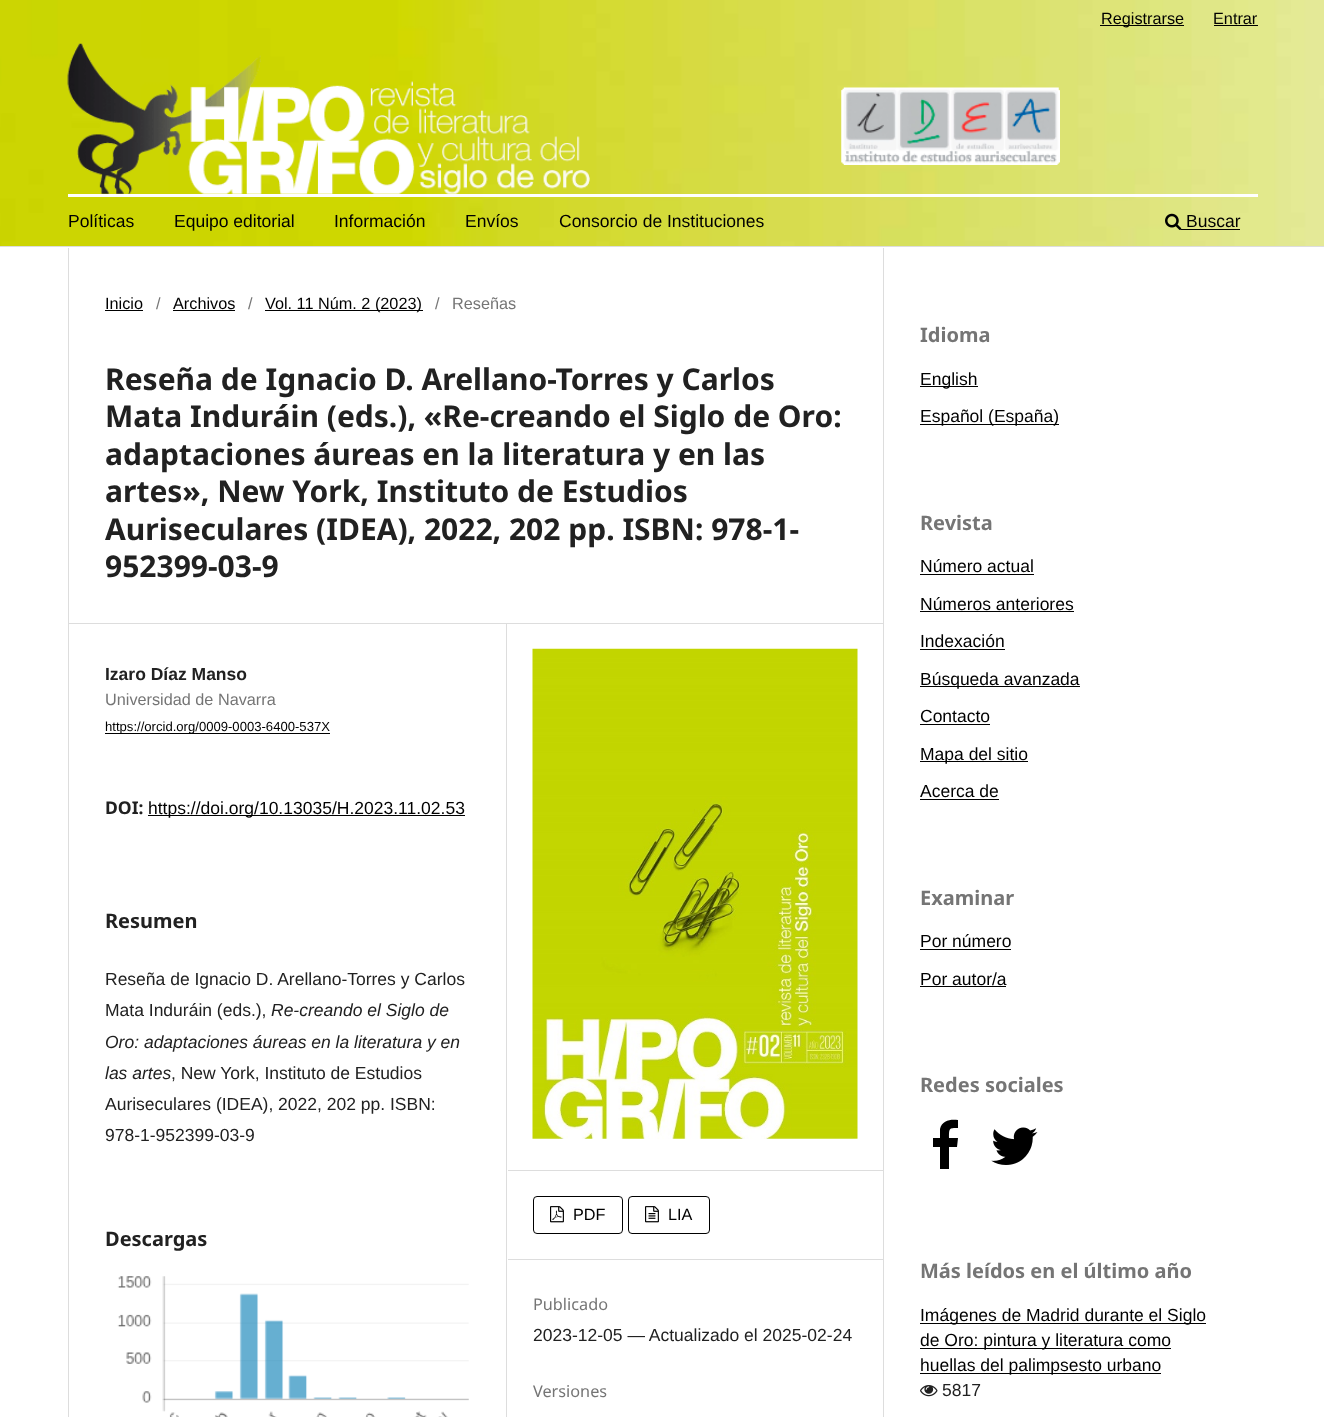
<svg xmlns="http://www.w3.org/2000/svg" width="1324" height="1417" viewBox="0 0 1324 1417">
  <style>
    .t1 { font: 16.25px Liberation Sans; fill: #000; }
    .t2 { font: 17.5px Liberation Sans; fill: #000; }
    .t3 { font: 16.25px Liberation Sans; fill: #757575; }
    .t4 { font: bold 30px Noto Sans; fill: #212121; }
    .t5 { font: bold 17.5px Liberation Sans; fill: #212121; }
    .t6 { font: 13.1px Liberation Sans; fill: #000; }
    .t7 { font: bold 17.5px Noto Sans; fill: #212121; }
    .t8 { font: bold 20px Noto Sans; fill: #212121; }
    .t9 { font: 17.5px Liberation Sans; fill: #212121; }
    .t10 { font: italic 17.5px Liberation Sans; fill: #212121; }
    .t11 { font: 16.25px Noto Sans; fill: #757575; }
    .t12 { font: bold 20px Noto Sans; fill: #757575; }
  </style>
  <rect width="100%" height="100%" fill="#fff"/>
  <image x="0" y="0" width="1324" height="246" href="images/1.png"/>
  <rect x="0" y="246" width="1324" height="1" fill="#ddd"/>
  <rect x="1100" y="25" width="84" height="1" fill="#000"/>
  <text x="1101" y="24" class="t1">Registrarse</text>
  <text x="1213" y="24" class="t1">Entrar</text>
  <rect x="1214" y="25" width="44" height="1" fill="#000"/>
  <text x="68" y="227" class="t2">Políticas</text>
  <text x="174" y="227" class="t2">Equipo editorial</text>
  <text x="334" y="227" class="t2">Información</text>
  <text x="465" y="227" class="t2">Envíos</text>
  <text x="559" y="227" class="t2">Consorcio de Instituciones</text>
  <image x="1165" y="213" width="17" height="17" href="images/2.png"/>
  <text x="1186" y="227" class="t2">Buscar</text>
  <rect x="1181" y="229" width="59" height="1" fill="#000"/>
  <rect x="68" y="194" width="1190" height="3" fill="#fff"/>
  <image x="67" y="43" width="523" height="151" href="images/3.png"/>
  <rect x="68" y="623" width="815" height="1" fill="#ddd"/>
  <rect x="68" y="248" width="1" height="1169" fill="#ddd"/>
  <text x="105" y="309" class="t1">Inicio</text>
  <rect x="105" y="310" width="38" height="1" fill="#000"/>
  <text x="156" y="309" class="t3">/</text>
  <text x="173" y="309" class="t1">Archivos</text>
  <rect x="173" y="310" width="62" height="1" fill="#000"/>
  <text x="248" y="309" class="t3">/</text>
  <rect x="265" y="310" width="158" height="1" fill="#000"/>
  <text x="265" y="309" class="t1">Vol. 11 Núm. 2 (2023)</text>
  <text x="435" y="309" class="t3">/</text>
  <text x="452" y="309" class="t3">Reseñas</text>
  <text x="105" y="390" class="t4">Reseña de Ignacio D. Arellano-Torres y Carlos</text>
  <text x="105" y="427" class="t4">Mata Induráin (eds.), «Re-creando el Siglo de Oro:</text>
  <text x="105" y="465" class="t4">adaptaciones áureas en la literatura y en las</text>
  <text x="105" y="502" class="t4">artes», New York, Instituto de Estudios</text>
  <text x="105" y="540" class="t4">Auriseculares (IDEA), 2022, 202 pp. ISBN: 978-1-</text>
  <text x="105" y="577" class="t4">952399-03-9</text>
  <rect x="506" y="624" width="1" height="793" fill="#ddd"/>
  <text x="105" y="680" class="t5">Izaro Díaz Manso</text>
  <text x="105" y="705" class="t3">Universidad de Navarra</text>
  <rect x="105" y="733" width="225" height="1" fill="#000"/>
  <text x="105" y="731" class="t6">https://orcid.org/0009-0003-6400-537X</text>
  <text x="105" y="814" class="t7">DOI:</text>
  <rect x="148" y="815" width="317" height="1" fill="#000"/>
  <text x="148" y="814" class="t2">https://doi.org/10.13035/H.2023.11.02.53</text>
  <text x="105" y="928" class="t8">Resumen</text>
  <text x="105" y="985" class="t9">Reseña de Ignacio D. Arellano-Torres y Carlos</text>
  <text x="105" y="1016" class="t9">Mata Induráin (eds.),</text>
  <text x="271" y="1016" class="t10">Re-creando el Siglo de</text>
  <text x="105" y="1048" class="t10">Oro: adaptaciones áureas en la literatura y en</text>
  <text x="105" y="1079" class="t10">las artes</text>
  <text x="171" y="1079" class="t9">, New York, Instituto de Estudios</text>
  <text x="105" y="1110" class="t9">Auriseculares (IDEA), 2022, 202 pp. ISBN:</text>
  <text x="105" y="1141" class="t9">978-1-952399-03-9</text>
  <text x="105" y="1246" class="t8">Descargas</text>
  <image x="117" y="1276" width="352" height="141" href="images/4.png"/>
  <rect x="508" y="1170" width="375" height="1" fill="#ddd"/>
  <image x="532" y="648" width="326" height="491" href="images/5.png"/>
  <rect x="508" y="1259" width="375" height="1" fill="#ddd"/>
  <rect x="533.5" y="1196.5" width="89" height="37" rx="3.5" fill="none" stroke="#000"/>
  <image x="550" y="1206" width="14" height="17" href="images/6.png"/>
  <text x="573" y="1220" class="t1">PDF</text>
  <rect x="628.5" y="1196.5" width="81" height="37" rx="3.5" fill="none" stroke="#000"/>
  <image x="645" y="1206" width="14" height="17" href="images/7.png"/>
  <text x="668" y="1220" class="t1">LIA</text>
  <text x="533" y="1310" class="t11">Publicado</text>
  <text x="533" y="1341" class="t9">2023-12-05 — Actualizado el 2025-02-24</text>
  <text x="533" y="1397" class="t11">Versiones</text>
  <rect x="883" y="248" width="1" height="1169" fill="#ddd"/>
  <text x="920" y="342" class="t12">Idioma</text>
  <rect x="920" y="386" width="58" height="1" fill="#000"/>
  <text x="920" y="385" class="t2">English</text>
  <rect x="920" y="424" width="139" height="1" fill="#000"/>
  <text x="920" y="422" class="t2">Español (España)</text>
  <text x="920" y="530" class="t12">Revista</text>
  <text x="920" y="572" class="t2">Número actual</text>
  <rect x="920" y="574" width="114" height="1" fill="#000"/>
  <text x="920" y="610" class="t2">Números anteriores</text>
  <rect x="920" y="611" width="154" height="1" fill="#000"/>
  <text x="920" y="647" class="t2">Indexación</text>
  <rect x="920" y="649" width="85" height="1" fill="#000"/>
  <rect x="920" y="686" width="160" height="1" fill="#000"/>
  <text x="920" y="685" class="t2">Búsqueda avanzada</text>
  <text x="920" y="722" class="t2">Contacto</text>
  <rect x="920" y="724" width="70" height="1" fill="#000"/>
  <rect x="920" y="761" width="108" height="1" fill="#000"/>
  <text x="920" y="760" class="t2">Mapa del sitio</text>
  <text x="920" y="797" class="t2">Acerca de</text>
  <rect x="920" y="799" width="79" height="1" fill="#000"/>
  <text x="920" y="905" class="t12">Examinar</text>
  <text x="920" y="947" class="t2">Por número</text>
  <rect x="920" y="949" width="91" height="1" fill="#000"/>
  <text x="920" y="985" class="t2">Por autor/a</text>
  <rect x="920" y="986" width="86" height="1" fill="#000"/>
  <text x="920" y="1092" class="t12">Redes sociales</text>
  <path d="M958 1120V1128C949 1128 949 1128 949 1138H958L957 1147H949V1169H940V1147H933V1138H940V1129C942 1120 951 1119 958 1120Z" fill="#000"/>
  <image x="991" y="1127" width="47" height="38" href="images/8.png"/>
  <text x="920" y="1278" class="t12">Más leídos en el último año</text>
  <rect x="920" y="1323" width="286" height="1" fill="#000"/>
  <text x="920" y="1321" class="t2">Imágenes de Madrid durante el Siglo</text>
  <rect x="920" y="1348" width="251" height="1" fill="#000"/>
  <text x="920" y="1346" class="t2">de Oro: pintura y literatura como</text>
  <rect x="920" y="1373" width="241" height="1" fill="#000"/>
  <text x="920" y="1371" class="t2">huellas del palimpsesto urbano</text>
  <image x="920" y="1385" width="18" height="12" href="images/9.png"/>
  <text x="942" y="1396" class="t9">5817</text>
  <image x="841" y="87" width="219" height="78" href="images/10.png"/>
</svg>
